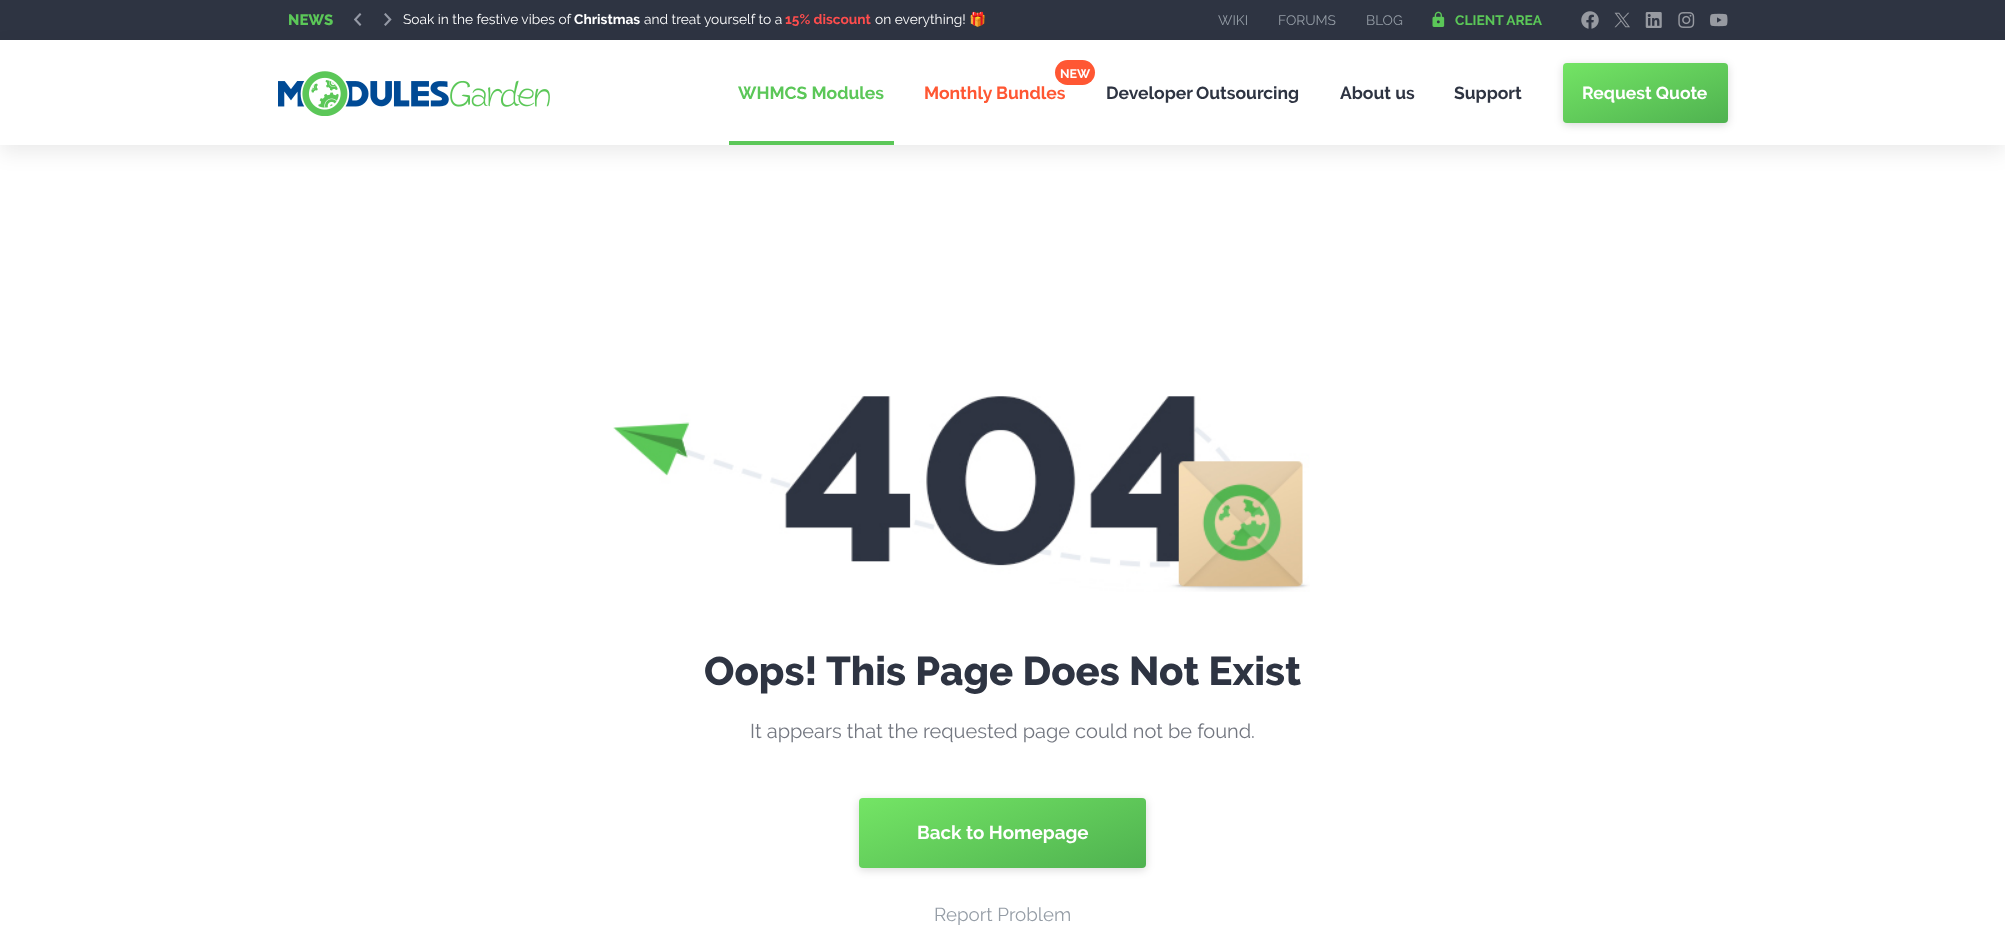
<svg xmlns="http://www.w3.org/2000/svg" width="2005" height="952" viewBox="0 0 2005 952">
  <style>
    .t1 { font: 800 15px Raleway; fill: #5bc758; }
    .t2 { font: 13.75px Raleway; fill: #fff; }
    .t3 { font: bold 13.75px Raleway; fill: #fff; }
    .t4 { font: bold 13.75px Raleway; fill: #ff4d4d; }
    .t5 { font: 13.75px Noto Color Emoji; fill: #fff; }
    .t6 { font: 13.75px Raleway; fill: #959da6; }
    .t7 { font: bold 13.75px Raleway; fill: #5bc758; }
    .t8 { font: bold 17.5px Raleway; fill: #5bc758; }
    .t9 { font: bold 12.5px Raleway; fill: #fff; }
    .t10 { font: bold 17.5px Raleway; fill: #ff5733; }
    .t11 { font: bold 17.5px Raleway; fill: #2e3442; }
    .t12 { font: bold 17.5px Raleway; fill: #fff; }
    .t13 { font: 800 40px Raleway; fill: #2e3442; }
    .t14 { font: 20px Raleway; fill: #737780; }
    .t15 { font: bold 18.75px Raleway; fill: #fff; }
    .t16 { font: 18.75px Raleway; fill: #959da6; }
  </style>
  <defs>
    <linearGradient id="g1" gradientUnits="userSpaceOnUse" x1="1626" y1="39" x2="1664" y2="146"><stop offset="0" stop-color="#74e565"/><stop offset="1" stop-color="#4fb250"/></linearGradient>
    <linearGradient id="g2" gradientUnits="userSpaceOnUse" x1="974" y1="755" x2="1031" y2="910"><stop offset="0" stop-color="#74e565"/><stop offset="1" stop-color="#4fb250"/></linearGradient>
  </defs>
  <rect width="100%" height="100%" fill="#fff"/>
  <rect x="0" y="0" width="2005" height="40" fill="#2e3442"/>
  <text x="288" y="25" class="t1">NEWS</text>
  <image x="354" y="13" width="8" height="13" href="images/1.png"/>
  <image x="384" y="13" width="8" height="13" href="images/2.png"/>
  <text x="403" y="24" class="t2">Soak in the festive vibes of</text>
  <text x="574" y="24" class="t3">Christmas</text>
  <text x="644" y="24" class="t2">and treat yourself to a</text>
  <text x="785" y="24" class="t4">15% discount</text>
  <text x="875" y="24" class="t2">on everything!</text>
  <text x="969" y="24" class="t5">🎁</text>
  <text x="1218" y="25" class="t6">WIKI</text>
  <text x="1278" y="25" class="t6">FORUMS</text>
  <text x="1366" y="25" class="t6">BLOG</text>
  <image x="1432" y="11" width="13" height="16" href="images/3.png"/>
  <text x="1455" y="25" class="t7">CLIENT AREA</text>
  <image x="1581" y="11" width="18" height="18" href="images/4.png"/>
  <image x="1614" y="12" width="16" height="16" href="images/5.png"/>
  <image x="1645" y="12" width="17" height="16" href="images/6.png"/>
  <image x="1678" y="12" width="17" height="16" href="images/7.png"/>
  <image x="1710" y="13" width="18" height="14" href="images/8.png"/>
  <rect x="0" y="48" width="2005" height="105" fill="#00000014" filter="blur(10px)"/>
  <rect x="0" y="40" width="2005" height="105" fill="#fff"/>
  <image x="278" y="71" width="272" height="45" href="images/9.png"/>
  <text x="738" y="99" class="t8">WHMCS Modules</text>
  <rect x="729" y="141" width="165" height="4" fill="#5bc758"/>
  <rect x="1055" y="60" width="40" height="25" rx="12.5" fill="#ff5733"/>
  <text x="1060" y="78" class="t9">NEW</text>
  <text x="924" y="99" class="t10">Monthly Bundles</text>
  <text x="1106" y="99" class="t11">Developer</text>
  <text x="1196" y="99" class="t11">Outsourcing</text>
  <text x="1340" y="99" class="t11">About us</text>
  <text x="1454" y="99" class="t11">Support</text>
  <rect x="1563" y="65" width="165" height="60" rx="4" fill="#00000026" filter="blur(4px)"/>
  <rect x="1563" y="63" width="165" height="60" rx="4" fill="url(#g1)"/>
  <text x="1582" y="99" class="t12">Request Quote</text>
  <image x="613" y="396" width="697" height="196" href="images/10.png"/>
  <text x="704" y="685" class="t13">Oops! This Page Does Not Exist</text>
  <text x="750" y="738" class="t14">It appears that the requested page could not be found.</text>
  <rect x="859" y="800" width="287" height="70" rx="4" fill="#00000026" filter="blur(4px)"/>
  <rect x="859" y="798" width="287" height="70" rx="4" fill="url(#g2)"/>
  <text x="917" y="839" class="t15">Back to Homepage</text>
  <text x="934" y="921" class="t16">Report Problem</text>
</svg>
